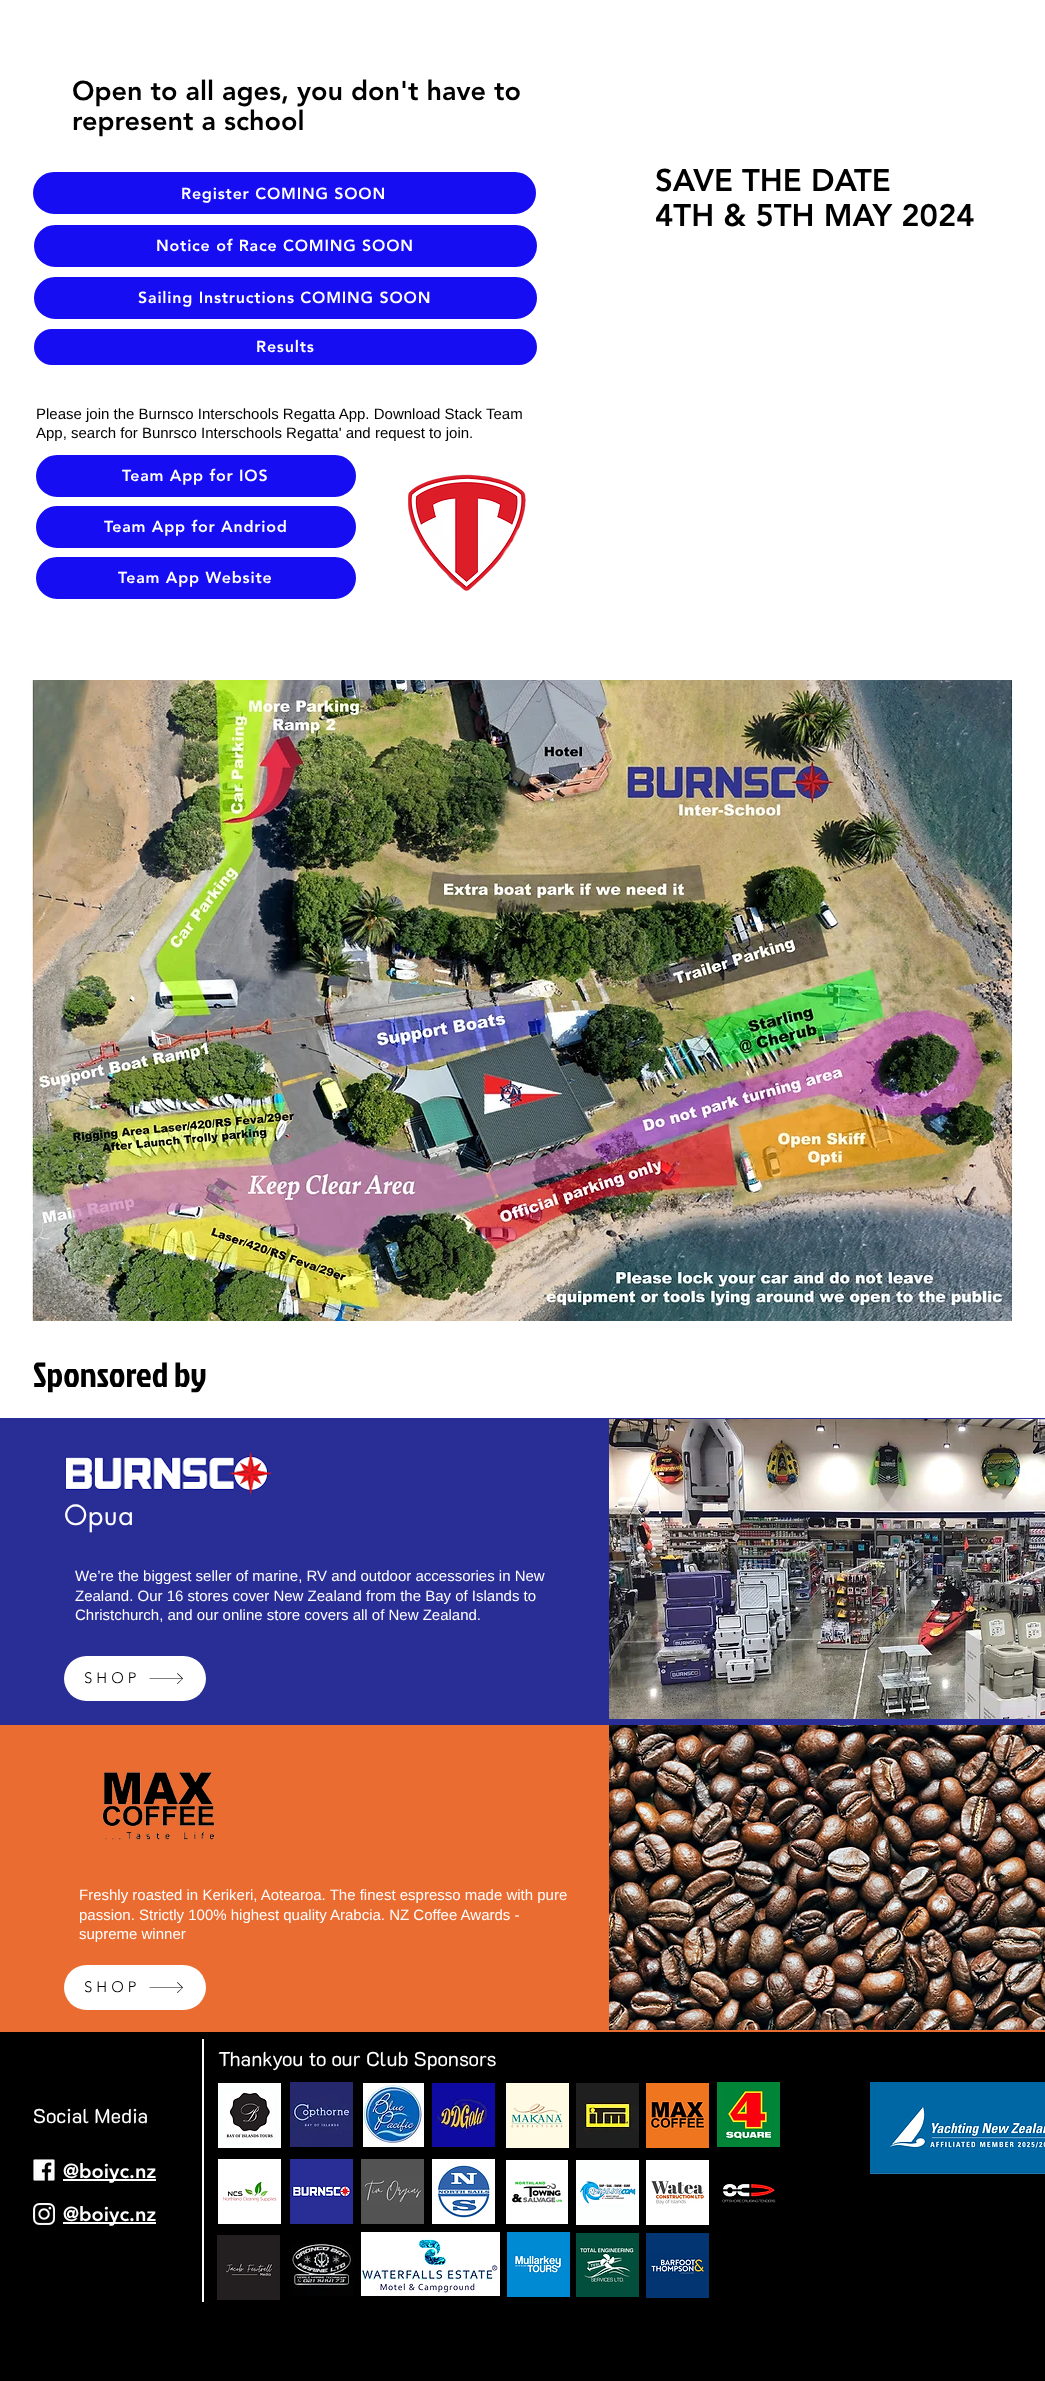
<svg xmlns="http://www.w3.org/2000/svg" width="1045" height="2381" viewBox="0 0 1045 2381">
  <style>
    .t1 { font: 900 27px 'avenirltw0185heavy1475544'; fill: #000; }
    .t2 { font: 900 16px 'avenirltw0185heavy1475544'; letter-spacing: 0.8px; fill: #fff; }
    .t3 { font: 900 31px 'avenirltw0185heavy1475544'; fill: #000; }
    .t4 { font: 15px Liberation Sans; fill: #000; }
    .t5 { font: 35px Jockey One; fill: #000; }
    .t6 { font: 27px futura; letter-spacing: 0.5px; fill: #fff; }
    .t7 { font: 15px Liberation Sans; fill: #fff; }
    .t8 { font: 300 15px 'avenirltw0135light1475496'; letter-spacing: 4px; fill: #000; }
    .t9 { font: 20px 'K2D'; fill: #fff; }
    .t10 { font: 900 20px 'avenirltw0185heavy1475544'; fill: #fff; }
  </style>
  <defs>
    <clipPath id="clip1"><rect x="104" y="517" width="183" height="19"/></clipPath>
  </defs>
  <rect width="100%" height="100%" fill="#fff"/>
  <text x="72" y="100" class="t1">Open to all ages, you don't have to</text>
  <text x="72" y="130" class="t1">represent a school</text>
  <rect x="34" y="173" width="501" height="40" rx="20" fill="#170df2" stroke="#170df2" stroke-width="2"/>
  <text x="181" y="199" class="t2">Register COMING SOON</text>
  <text x="655" y="191" class="t3">SAVE THE DATE</text>
  <text x="655" y="226" class="t3">4TH &amp; 5TH MAY 2024</text>
  <rect x="35" y="226" width="501" height="40" rx="20" fill="#170df2" stroke="#170df2" stroke-width="2"/>
  <text x="156" y="251" class="t2">Notice of Race COMING SOON</text>
  <rect x="35" y="278" width="501" height="40" rx="20" fill="#170df2" stroke="#170df2" stroke-width="2"/>
  <text x="138" y="303" class="t2">Sailing Instructions COMING SOON</text>
  <rect x="35" y="330" width="501" height="34" rx="17" fill="#170df2" stroke="#170df2" stroke-width="2"/>
  <text x="256" y="352" class="t2">Results</text>
  <text x="36" y="419" class="t4">Please join the Burnsco Interschools Regatta App. Download Stack Team</text>
  <text x="36" y="438" class="t4">App, search for Bunrsco Interschools Regatta' and request to join.</text>
  <rect x="37" y="456" width="318" height="40" rx="20" fill="#170df2" stroke="#170df2" stroke-width="2"/>
  <text x="122" y="481" class="t2">Team App for IOS</text>
  <image x="408" y="474" width="118" height="117" href="images/1.png"/>
  <rect x="37" y="507" width="318" height="40" rx="20" fill="#170df2" stroke="#170df2" stroke-width="2"/>
  <g clip-path="url(#clip1)">
    <text x="104" y="532" class="t2">Team App for Andriod</text>
  </g>
  <rect x="37" y="558" width="318" height="40" rx="20" fill="#170df2" stroke="#170df2" stroke-width="2"/>
  <text x="118" y="583" class="t2">Team App Website</text>
  <image x="31" y="680" width="982" height="641" href="images/2.png"/>
  <text x="33" y="1387" class="t5">Sponsored by</text>
  <rect x="0" y="1418" width="1045" height="307" fill="#292d96"/>
  <image x="64" y="1452" width="209" height="43" href="images/3.png"/>
  <image x="609" y="1419" width="436" height="300" href="images/4.png"/>
  <text x="64" y="1525" class="t6">Opua</text>
  <text x="75" y="1581" class="t7">We’re the biggest seller of marine, RV and outdoor accessories in New</text>
  <text x="75" y="1601" class="t7">Zealand. Our 16 stores cover New Zealand from the Bay of Islands to</text>
  <text x="75" y="1620" class="t7">Christchurch, and our online store covers all of New Zealand.</text>
  <rect x="64" y="1656" width="142" height="45" rx="22.5" fill="#fff"/>
  <text x="84" y="1683" class="t8">SHOP</text>
  <path d="M177.5 1673L177 1673.5L182 1678.5H149.5V1679H182L177 1683.5L177.5 1684L183 1678.5Z" fill="#000"/>
  <rect x="0" y="1725" width="1045" height="307" fill="#ea6c31"/>
  <image x="102" y="1772" width="113" height="68" href="images/5.png"/>
  <image x="609" y="1725" width="436" height="305" href="images/6.png"/>
  <text x="79" y="1900" class="t7">Freshly roasted in Kerikeri, Aotearoa. The finest espresso made with pure</text>
  <text x="79" y="1920" class="t7">passion. Strictly 100% highest quality Arabcia. NZ Coffee Awards -</text>
  <text x="79" y="1939" class="t7">supreme winner</text>
  <rect x="64" y="1965" width="142" height="45" rx="22.5" fill="#fff"/>
  <text x="84" y="1992" class="t8">SHOP</text>
  <path d="M177.5 1982L177 1982.5L182 1987.5H149.5V1988H182L177 1992.5L177.5 1993L183 1987.5Z" fill="#000"/>
  <rect x="0" y="2032" width="1045" height="349" fill="#000"/>
  <rect x="202" y="2039" width="2" height="263" fill="#fff"/>
  <text x="218" y="2066" class="t9">Thankyou to our Club Sponsors</text>
  <text x="33" y="2123" class="t9">Social Media</text>
  <image x="218" y="2083" width="63" height="65" href="images/7.png"/>
  <image x="290" y="2082" width="63" height="65" href="images/8.png"/>
  <image x="363" y="2083" width="61" height="64" href="images/9.png"/>
  <image x="432" y="2083" width="63" height="64" href="images/10.png"/>
  <image x="506" y="2083" width="63" height="65" href="images/11.png"/>
  <image x="576" y="2083" width="63" height="65" href="images/12.png"/>
  <image x="646" y="2083" width="63" height="65" href="images/13.png"/>
  <image x="717" y="2082" width="63" height="65" href="images/14.png"/>
  <image x="870" y="2082" width="175" height="92" href="images/15.png"/>
  <image x="33" y="2159" width="22" height="22" href="images/16.png"/>
  <rect x="63" y="2179" width="93" height="2" fill="#fff"/>
  <text x="63" y="2178" class="t10">@boiyc.nz</text>
  <image x="218" y="2159" width="63" height="65" href="images/17.png"/>
  <image x="290" y="2159" width="63" height="65" href="images/18.png"/>
  <image x="361" y="2159" width="63" height="65" href="images/19.png"/>
  <image x="432" y="2159" width="63" height="65" href="images/20.png"/>
  <image x="506" y="2160" width="62" height="64" href="images/21.png"/>
  <image x="576" y="2160" width="63" height="65" href="images/22.png"/>
  <image x="646" y="2160" width="63" height="65" href="images/23.png"/>
  <image x="722" y="2184" width="54" height="19" href="images/24.png"/>
  <image x="33" y="2203" width="22" height="22" href="images/25.png"/>
  <rect x="63" y="2222" width="93" height="2" fill="#fff"/>
  <text x="63" y="2221" class="t10">@boiyc.nz</text>
  <image x="217" y="2235" width="63" height="65" href="images/26.png"/>
  <image x="290" y="2244" width="63" height="52" href="images/27.png"/>
  <image x="361" y="2232" width="139" height="64" href="images/28.png"/>
  <image x="507" y="2232" width="63" height="65" href="images/29.png"/>
  <image x="576" y="2233" width="63" height="64" href="images/30.png"/>
  <image x="646" y="2233" width="63" height="65" href="images/31.png"/>
</svg>
